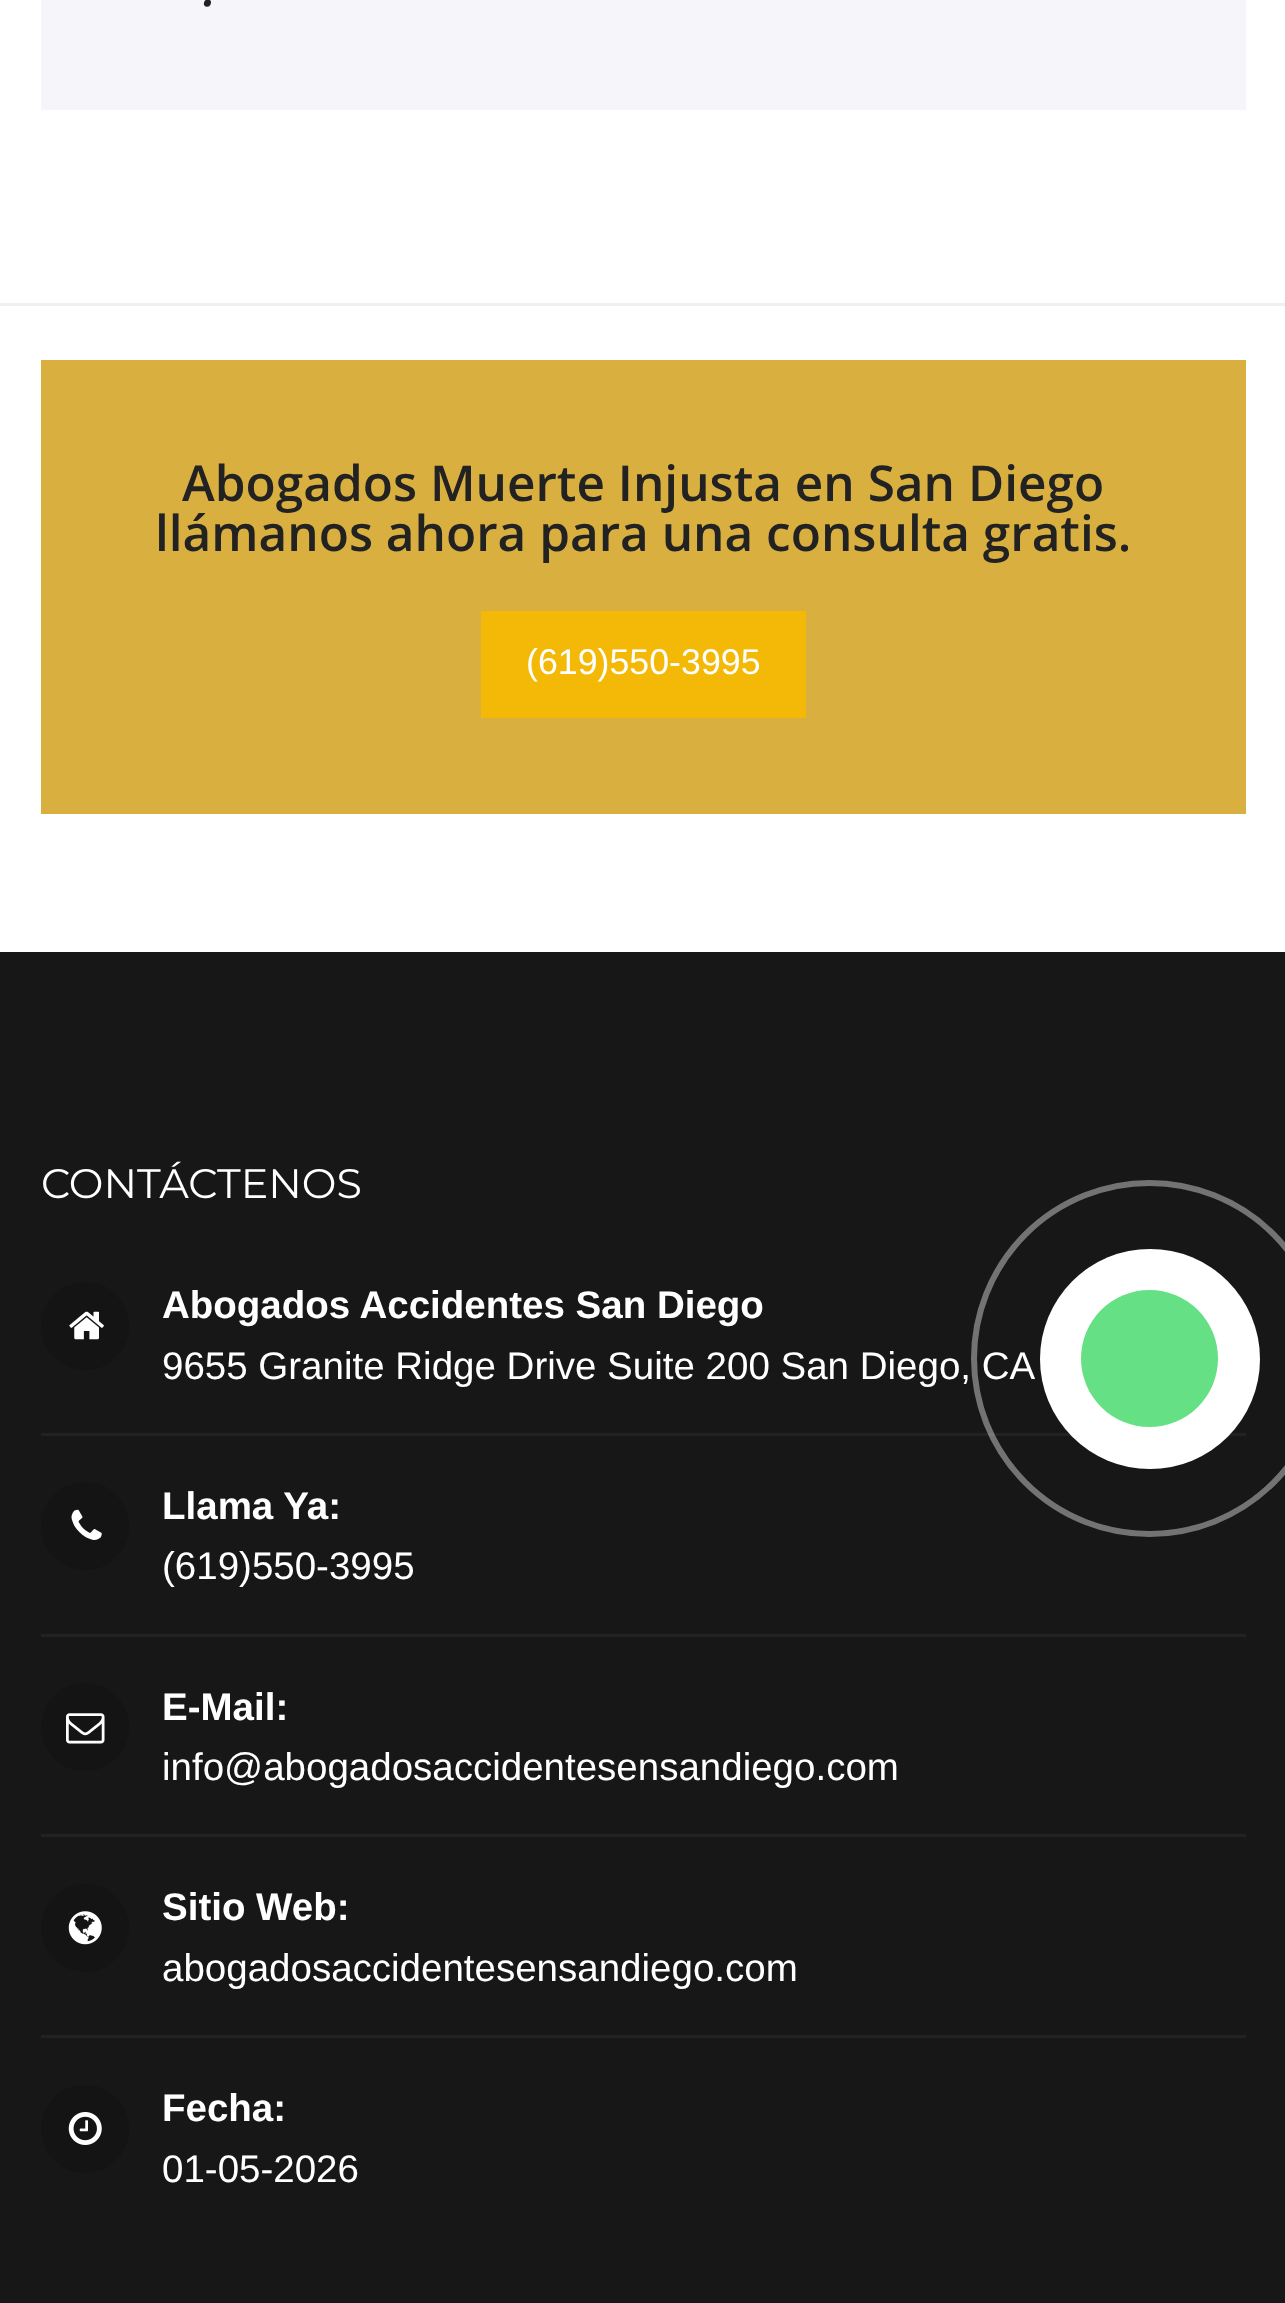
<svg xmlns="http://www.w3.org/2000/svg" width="1285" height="2303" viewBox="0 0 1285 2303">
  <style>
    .t1 { font: italic 600 49.5px Open Sans; fill: #222; }
    .t2 { font: 600 49.5px Open Sans; fill: #222; }
    .t3 { font: 35.75px Liberation Sans; fill: #fff; }
    .t4 { font: 41.25px Montserrat; fill: #fff; }
    .t5 { font: bold 38.5px Liberation Sans; fill: #fff; }
    .t6 { font: 38.5px Liberation Sans; fill: #fff; }
  </style>
  <rect width="100%" height="100%" fill="#fff"/>
  <rect x="0" y="303" width="1285" height="3" fill="#f0f0f0"/>
  <rect x="41" y="0" width="1205" height="110" fill="#f6f6fa"/>
  <text x="203" y="6" class="t1">.</text>
  <rect x="41" y="360" width="1205" height="454" fill="#d9b040"/>
  <text x="182" y="501" class="t2">Abogados Muerte Injusta en San Diego</text>
  <text x="155" y="551" class="t2">llámanos ahora para una consulta gratis.</text>
  <rect x="481" y="611" width="325" height="107" fill="#f4b907"/>
  <text x="526" y="674" class="t3">(619)550-3995</text>
  <rect x="0" y="952" width="1285" height="1351" fill="#171717"/>
  <text x="41" y="1198" class="t4">CONTÁCTENOS</text>
  <rect x="41" y="1433" width="1205" height="3" fill="#222"/>
  <circle cx="85" cy="1326" r="44" fill="#141414"/>
  <image x="69" y="1311" width="35" height="29" href="images/1.png"/>
  <text x="162" y="1318" class="t5">Abogados Accidentes San Diego</text>
  <text x="162" y="1379" class="t6">9655 Granite Ridge Drive Suite 200 San Diego, CA</text>
  <rect x="41" y="1634" width="1205" height="3" fill="#222"/>
  <circle cx="85" cy="1526" r="44" fill="#141414"/>
  <image x="71" y="1509" width="31" height="31" href="images/2.png"/>
  <text x="162" y="1519" class="t5">Llama Ya:</text>
  <text x="162" y="1579" class="t6">(619)550-3995</text>
  <rect x="41" y="1834" width="1205" height="3" fill="#222"/>
  <circle cx="85" cy="1727" r="44" fill="#141414"/>
  <image x="66" y="1713" width="39" height="31" href="images/3.png"/>
  <text x="162" y="1720" class="t5">E-Mail:</text>
  <text x="162" y="1780" class="t6">info@abogadosaccidentesensandiego.com</text>
  <rect x="41" y="2035" width="1205" height="3" fill="#222"/>
  <circle cx="85" cy="1928" r="44" fill="#141414"/>
  <image x="68" y="1911" width="34" height="34" href="images/4.png"/>
  <text x="162" y="1920" class="t5">Sitio Web:</text>
  <text x="162" y="1981" class="t6">abogadosaccidentesensandiego.com</text>
  <circle cx="85" cy="2129" r="44" fill="#141414"/>
  <image x="68" y="2112" width="34" height="33" href="images/5.png"/>
  <text x="162" y="2121" class="t5">Fecha:</text>
  <text x="162" y="2182" class="t6">01-05-2026</text>
  <circle cx="1149.5" cy="1358.5" r="175.5" fill="none" stroke="#ffffff66" stroke-width="6"/>
  <circle cx="1150" cy="1359" r="110" fill="#fff"/>
  <circle cx="1149.5" cy="1358.5" r="68.5" fill="#66e085"/>
</svg>
